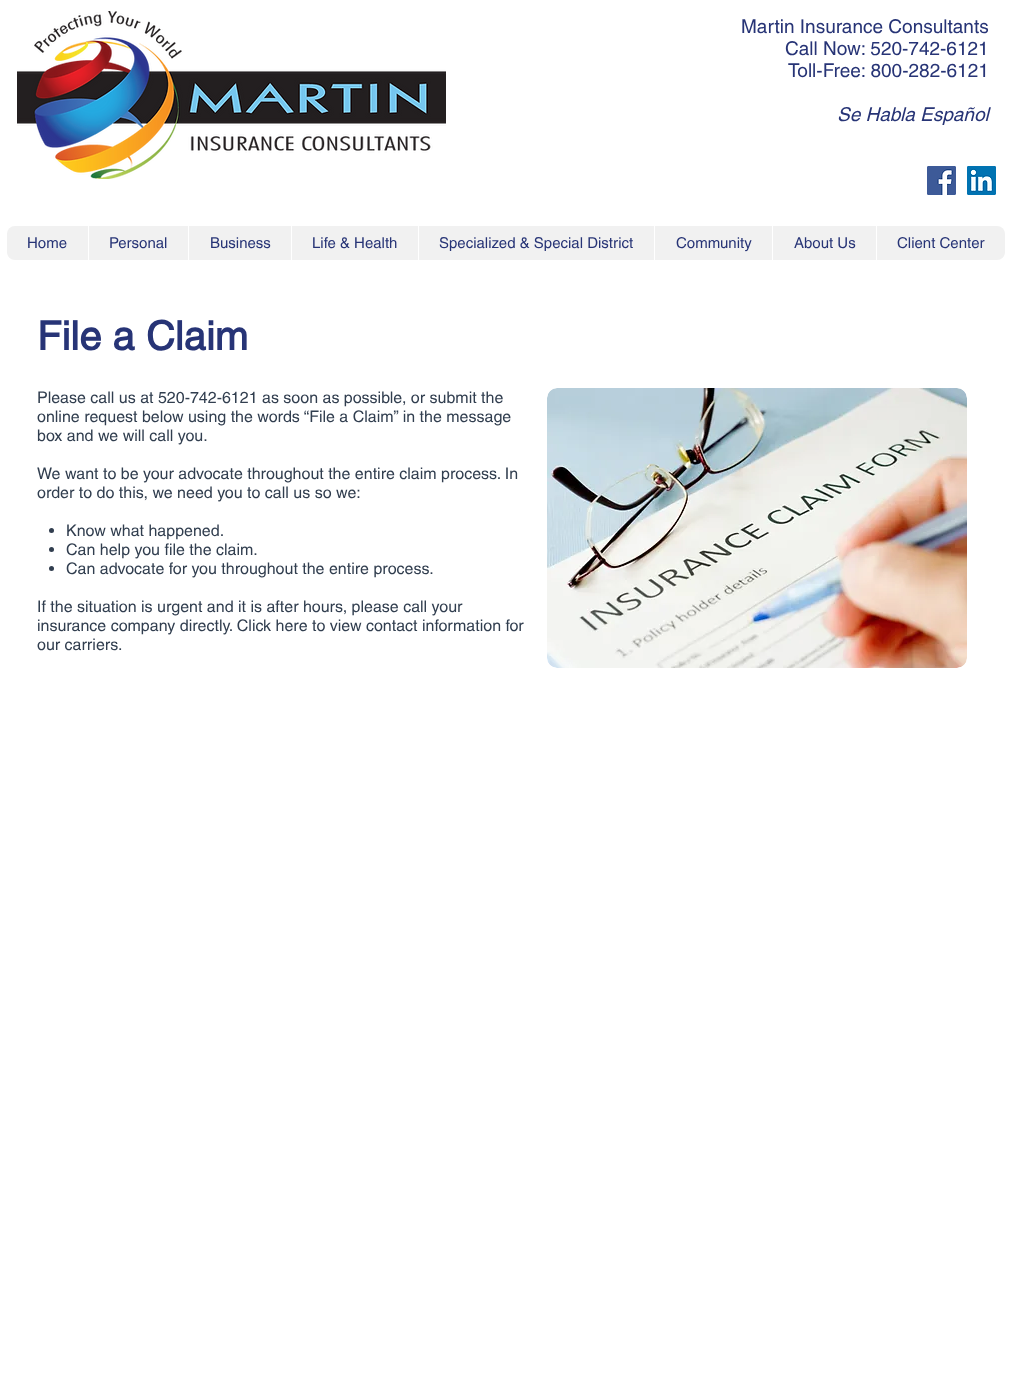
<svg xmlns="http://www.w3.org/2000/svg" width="1014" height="1378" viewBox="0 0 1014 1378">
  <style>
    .t1 { font: 19px helvetica; fill: #273476; }
    .t2 { font: italic 19px helvetica; fill: #273476; }
    .t3 { font: 15px helvetica; fill: #273476; }
    .t4 { font: bold 40px helvetica; fill: #273476; }
    .t5 { font: 16px helvetica; fill: #313e4f; }
  </style>
  <rect width="100%" height="100%" fill="#fff"/>
  <image x="17" y="11" width="429" height="168" href="images/1.png"/>
  <text x="741" y="33" class="t1">Martin Insurance Consultants</text>
  <text x="785" y="55" class="t1">Call Now: 520-742-6121</text>
  <text x="788" y="77" class="t1">Toll-Free: 800-282-6121</text>
  <text x="837" y="121" class="t2">Se Habla Español</text>
  <image x="927" y="166" width="29" height="29" href="images/2.png"/>
  <image x="967" y="166" width="29" height="29" href="images/3.png"/>
  <rect x="7" y="226" width="998" height="34" rx="8" fill="#f1f1f1"/>
  <text x="27" y="248" class="t3">Home</text>
  <rect x="88" y="226" width="1" height="34" fill="#fff"/>
  <text x="109" y="248" class="t3">Personal</text>
  <rect x="188" y="226" width="1" height="34" fill="#fff"/>
  <text x="210" y="248" class="t3">Business</text>
  <rect x="291" y="226" width="1" height="34" fill="#fff"/>
  <text x="312" y="248" class="t3">Life &amp; Health</text>
  <rect x="418" y="226" width="1" height="34" fill="#fff"/>
  <text x="439" y="248" class="t3">Specialized &amp; Special District</text>
  <rect x="654" y="226" width="1" height="34" fill="#fff"/>
  <text x="676" y="248" class="t3">Community</text>
  <rect x="772" y="226" width="1" height="34" fill="#fff"/>
  <text x="794" y="248" class="t3">About Us</text>
  <rect x="876" y="226" width="1" height="34" fill="#fff"/>
  <text x="897" y="248" class="t3">Client Center</text>
  <text x="37" y="350" class="t4">File a Claim</text>
  <text x="37" y="403" class="t5">Please call us at 520-742-6121 as soon as possible, or submit the</text>
  <text x="37" y="422" class="t5">online request below using the words “File a Claim” in the message</text>
  <text x="37" y="441" class="t5">box and we will call you.</text>
  <text x="37" y="479" class="t5">We want to be your advocate throughout the entire claim process. In</text>
  <text x="37" y="498" class="t5">order to do this, we need you to call us so we:</text>
  <circle cx="51.5" cy="530.5" r="2.5" fill="#313e4f"/>
  <text x="66" y="536" class="t5">Know what happened.</text>
  <circle cx="51.5" cy="549.5" r="2.5" fill="#313e4f"/>
  <text x="66" y="555" class="t5">Can help you file the claim.</text>
  <circle cx="51.5" cy="568.5" r="2.5" fill="#313e4f"/>
  <text x="66" y="574" class="t5">Can advocate for you throughout the entire process.</text>
  <text x="37" y="612" class="t5">If the situation is urgent and it is after hours, please call your</text>
  <text x="37" y="631" class="t5">insurance company directly. Click here to view contact information for</text>
  <text x="37" y="650" class="t5">our carriers.</text>
  <image x="547" y="388" width="420" height="280" href="images/4.png"/>
</svg>
